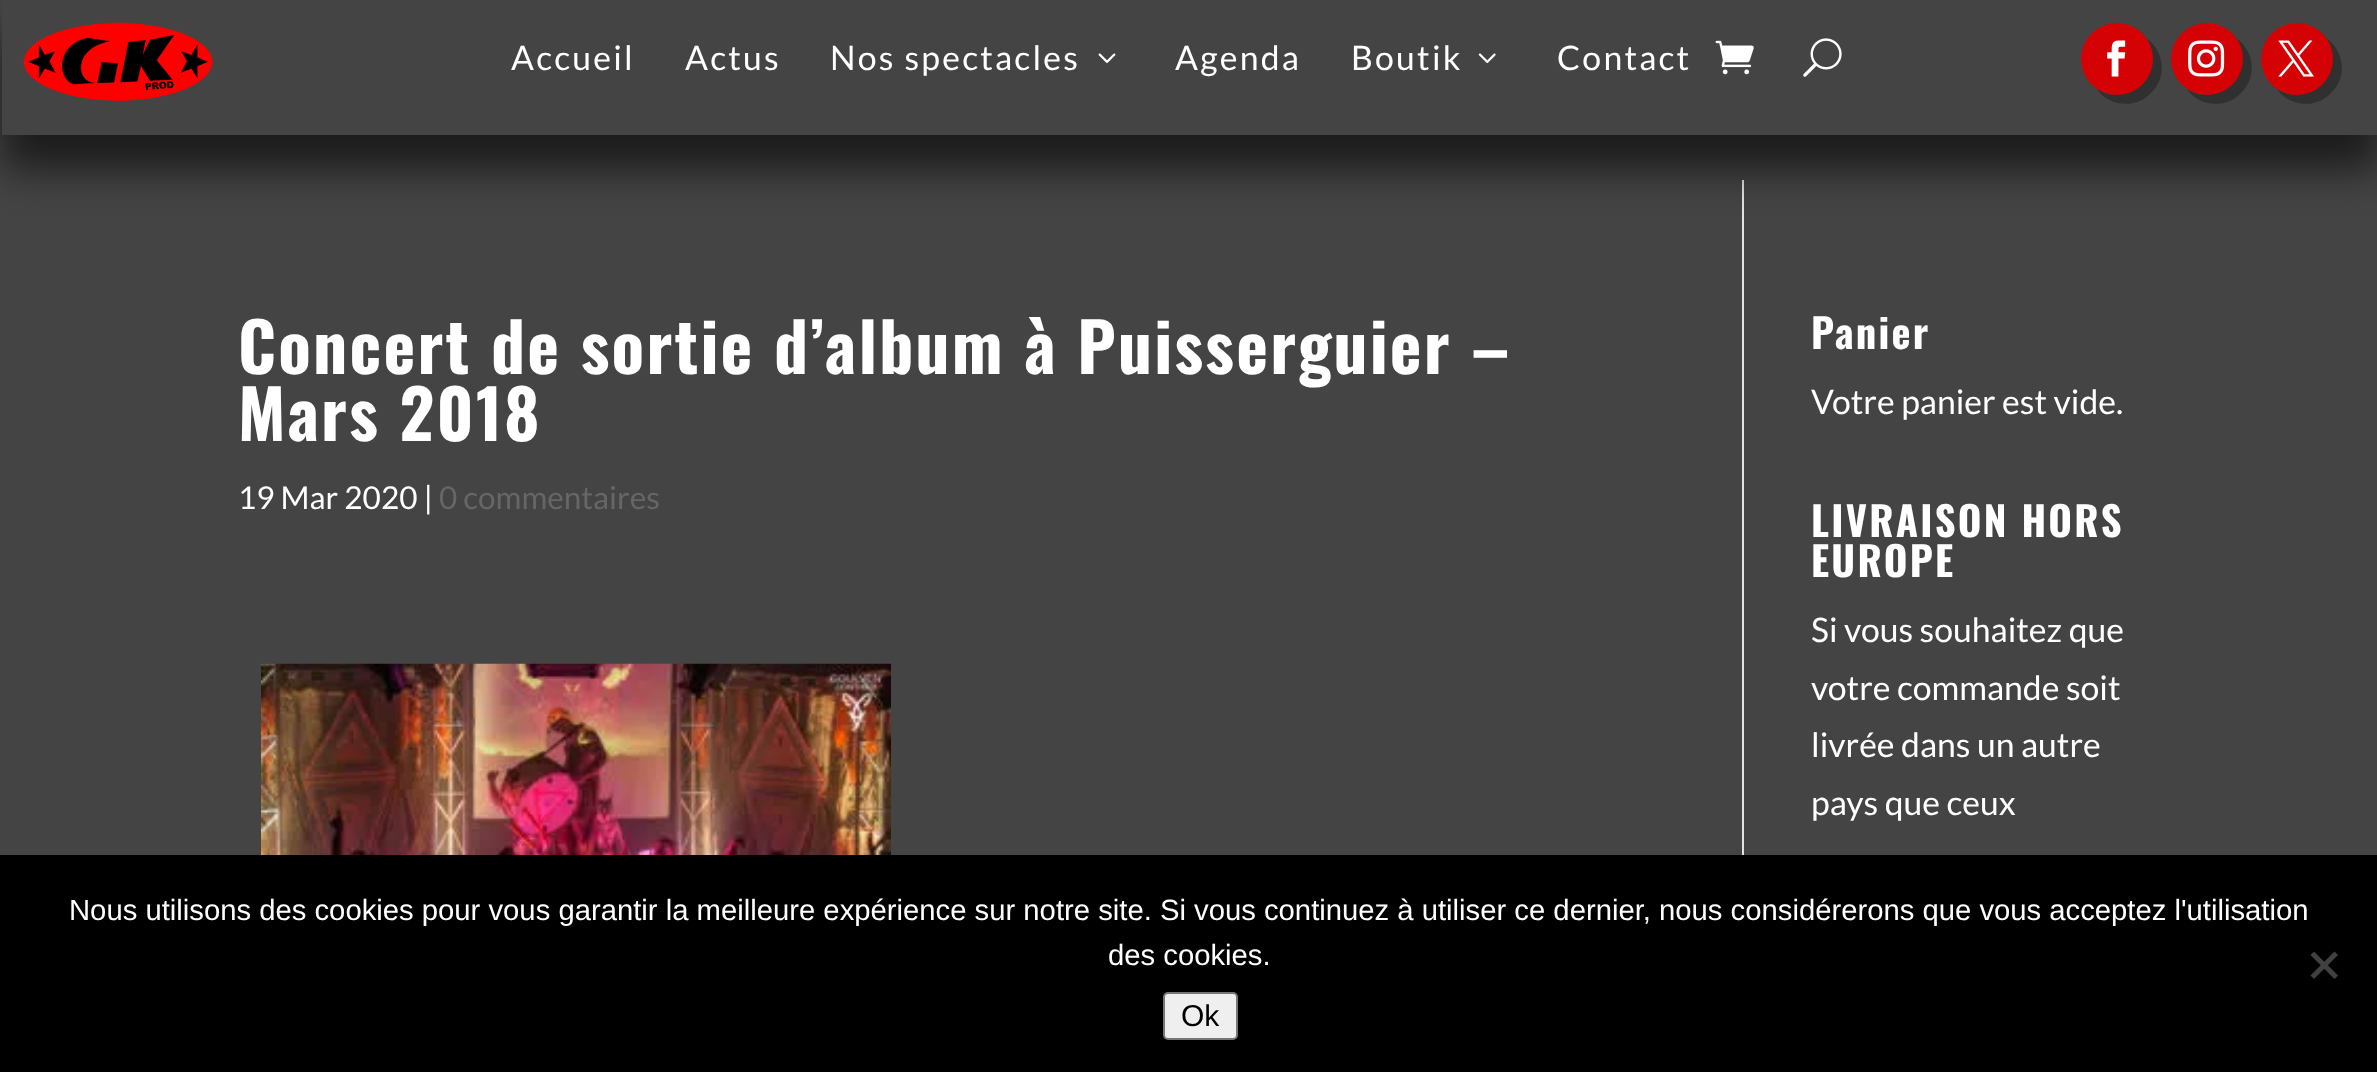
<svg xmlns="http://www.w3.org/2000/svg" width="2377" height="1072" viewBox="0 0 2377 1072">
  <style>
    .t1 { font: 33.75px Lato; letter-spacing: 2.25px; fill: #fff; }
    .t2 { font: bold 67.5px Oswald; letter-spacing: 2.25px; fill: #fff; }
    .t3 { font: 31.5px Lato; fill: #fff; }
    .t4 { font: 31.5px Lato; fill: #666; }
    .t5 { font: bold 40.5px Oswald; letter-spacing: 2.25px; fill: #fff; }
    .t6 { font: 33.75px Lato; fill: #fff; }
    .t7 { font: 29.25px Liberation Sans; fill: #fff; }
    .t8 { font: 30px Liberation Sans; fill: #000; }
  </style>
  <defs>
    <clipPath id="clip1"><path d="M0 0H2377V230H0ZM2 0H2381V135H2Z" clip-rule="evenodd"/></clipPath>
  </defs>
  <rect width="100%" height="100%" fill="#444"/>
  <rect x="1742" y="180" width="2" height="675" fill="#e2e2e2"/>
  <g clip-path="url(#clip1)">
    <rect x="2" y="34" width="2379" height="135" fill="#00000099" filter="blur(20px)"/>
  </g>
  <image x="23" y="22" width="190" height="80" href="images/1.png"/>
  <text x="511" y="70" class="t1">Accueil</text>
  <text x="685" y="70" class="t1">Actus</text>
  <text x="830" y="70" class="t1">Nos spectacles</text>
  <image x="1098" y="53" width="18" height="10" href="images/2.png"/>
  <text x="1175" y="70" class="t1">Agenda</text>
  <text x="1351" y="70" class="t1">Boutik</text>
  <image x="1478" y="53" width="18" height="10" href="images/3.png"/>
  <text x="1557" y="70" class="t1">Contact</text>
  <image x="1715" y="40" width="39" height="35" href="images/4.png"/>
  <image x="1803" y="38" width="39" height="39" href="images/5.png"/>
  <path d="M2097 89C2109 107 2136 109 2151 93C2168 77 2164 50 2146 38C2168 70 2129 110 2097 89Z" fill="#303030"/>
  <circle cx="2117" cy="59" r="36" fill="#d40205"/>
  <image x="2107" y="40" width="19" height="37" href="images/6.png"/>
  <path d="M2187 89C2199 107 2226 109 2241 93C2258 77 2254 50 2236 38C2258 70 2219 110 2187 89Z" fill="#303030"/>
  <circle cx="2207" cy="59" r="36" fill="#d40205"/>
  <image x="2188" y="40" width="37" height="37" href="images/7.png"/>
  <path d="M2277 89C2289 107 2316 109 2331 93C2348 77 2344 50 2326 38C2348 70 2309 110 2277 89Z" fill="#303030"/>
  <circle cx="2297" cy="59" r="36" fill="#d40205"/>
  <image x="2278" y="40" width="36" height="37" href="images/8.png"/>
  <text x="238" y="374" class="t2">Concert de sortie d’album à Puisserguier –</text>
  <text x="238" y="441" class="t2">Mars 2018</text>
  <text x="238" y="509" class="t3">19 Mar 2020 |</text>
  <text x="439" y="509" class="t4">0 commentaires</text>
  <image x="261" y="663" width="630" height="192" href="images/9.png"/>
  <text x="1811" y="349" class="t5">Panier</text>
  <text x="1811" y="414" class="t6">Votre panier est vide.</text>
  <text x="1811" y="537" class="t5">LIVRAISON HORS</text>
  <text x="1811" y="577" class="t5">EUROPE</text>
  <text x="1811" y="642" class="t6">Si vous souhaitez que</text>
  <text x="1811" y="700" class="t6">votre commande soit</text>
  <text x="1811" y="757" class="t6">livrée dans un autre</text>
  <text x="1811" y="815" class="t6">pays que ceux</text>
  <rect x="0" y="855" width="2377" height="217" fill="#000"/>
  <text x="69" y="920" class="t7">Nous utilisons des cookies pour vous garantir la meilleure expérience sur notre site. Si vous continuez à utiliser ce dernier, nous considérerons que vous acceptez l'utilisation</text>
  <text x="1108" y="965" class="t7">des cookies.</text>
  <path d="M2334.5 951.5L2338 955L2314 979L2310.5 975.5Z" fill="#404040"/>
  <path d="M2310.5 955L2314 951.5L2338 975.5L2334.5 979Z" fill="#404040"/>
  <rect x="1164" y="993" width="73" height="46" rx="4" fill="#efefef" stroke="#767676" stroke-width="2"/>
  <text x="1181" y="1026" class="t8">Ok</text>
</svg>
